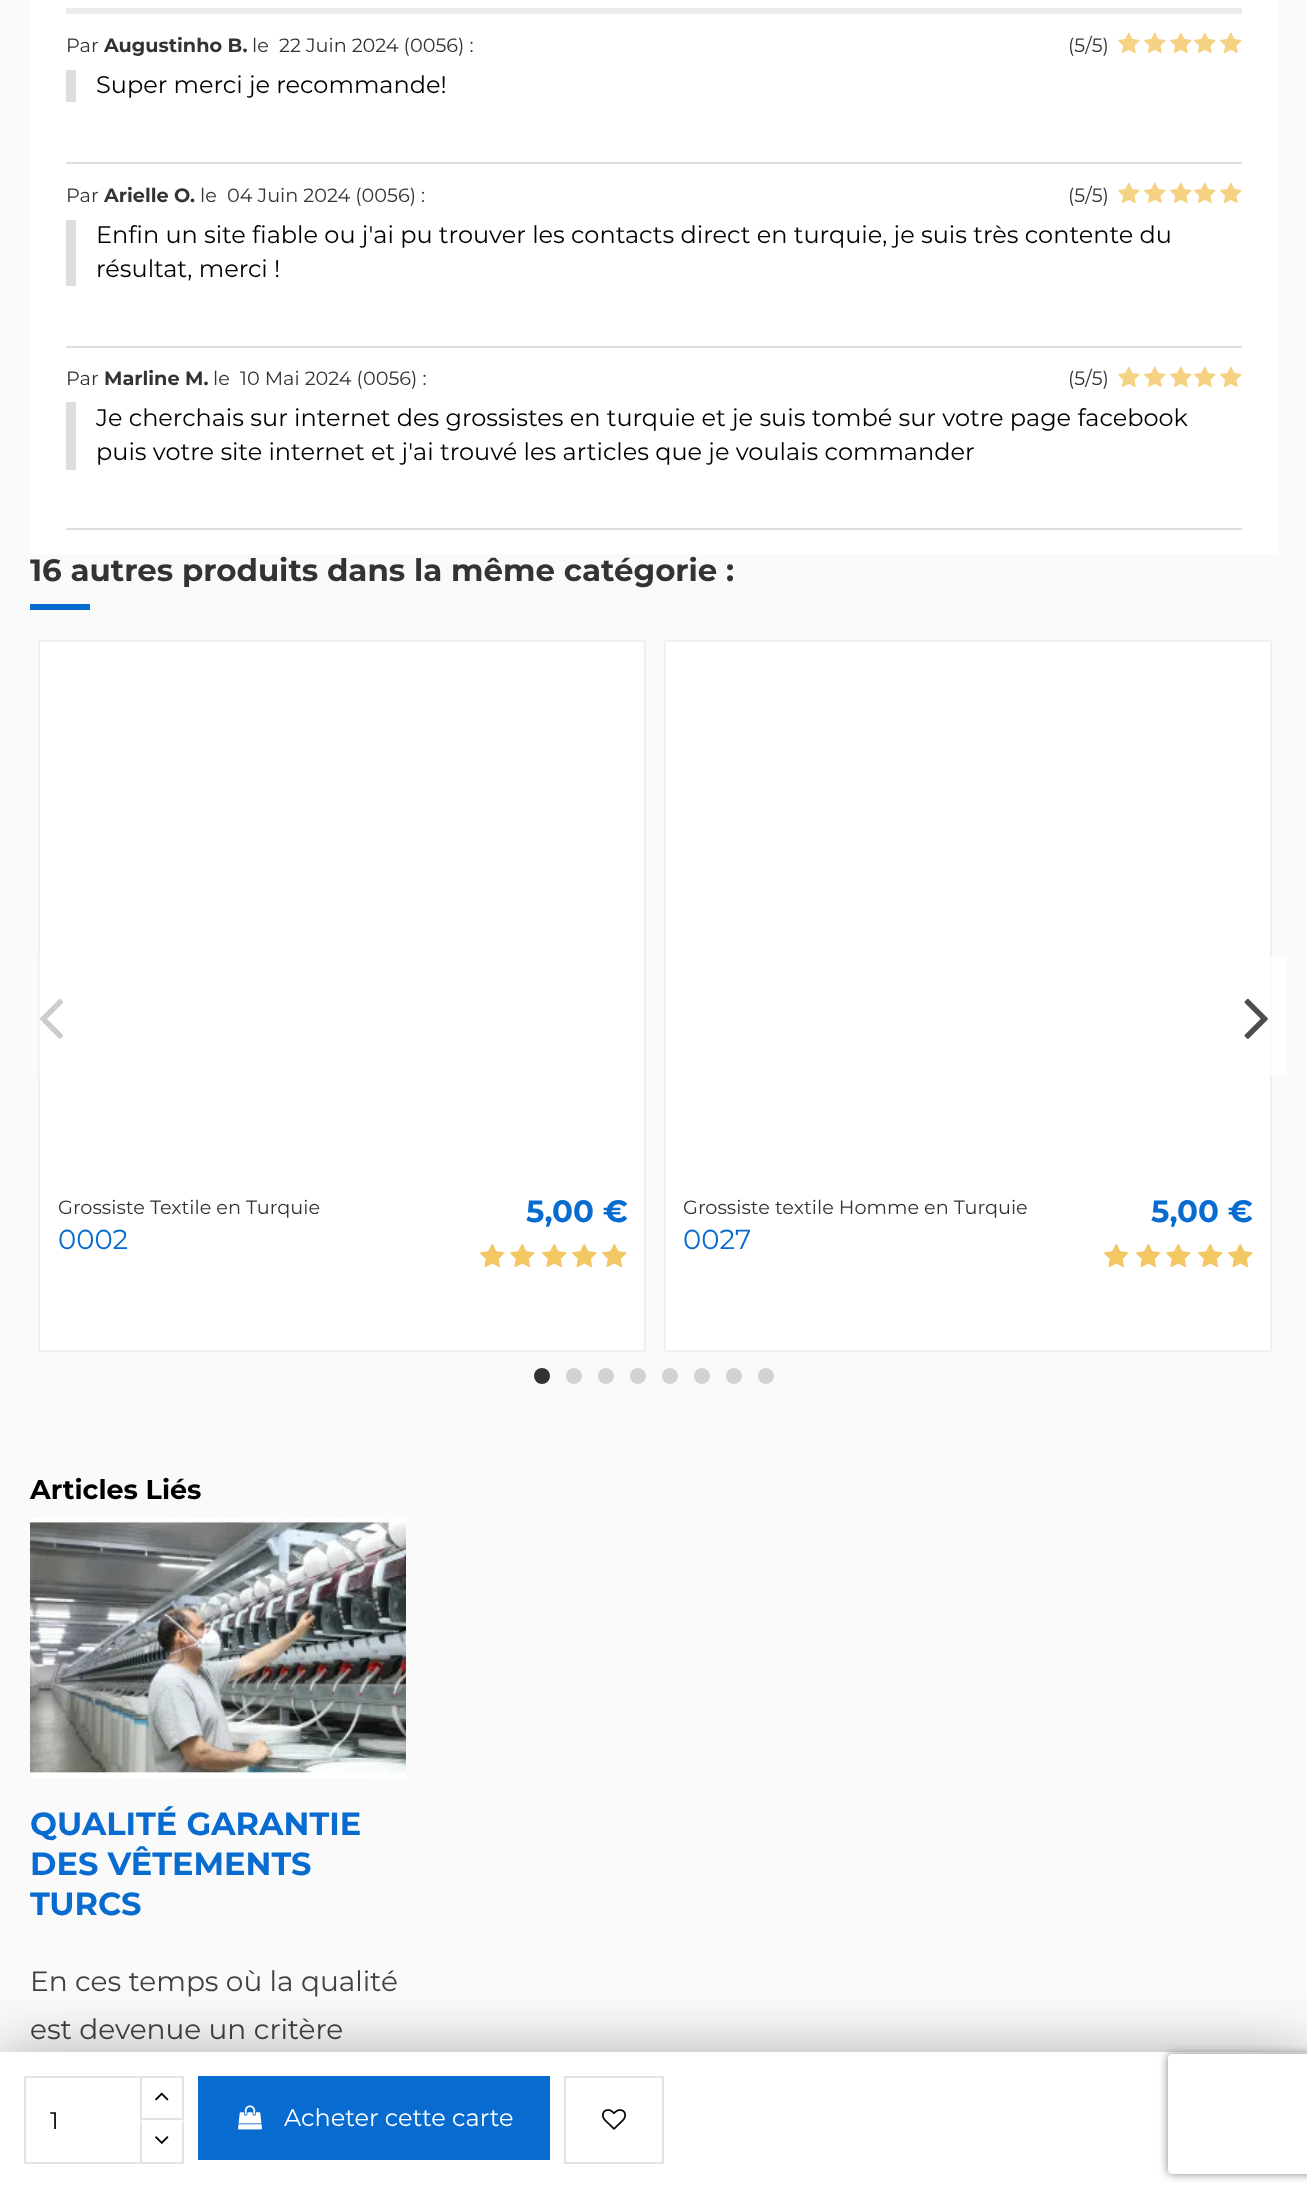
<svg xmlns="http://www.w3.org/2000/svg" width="1307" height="2202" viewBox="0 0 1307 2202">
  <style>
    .t1 { font: 19.25px Montserrat; fill: #333; }
    .t2 { font: bold 19.25px Montserrat; fill: #333; }
    .t3 { font: 24px Montserrat; fill: #000; }
    .t4 { font: bold 30.9px Montserrat; fill: #333; }
    .t5 { font: 27.5px Montserrat; fill: #086bd0; }
    .t6 { font: bold 30.9px Montserrat; fill: #086bd0; }
    .t7 { font: bold 27px Montserrat; fill: #000; }
    .t8 { font: bold 32px Montserrat; fill: #086bd0; }
    .t9 { font: 28px Montserrat; fill: #414141; }
    .t10 { font: 24px Montserrat; fill: #fff; }
  </style>
  <defs>
    <clipPath id="clip1"><path d="M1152 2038H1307V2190H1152ZM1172 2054H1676C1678 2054 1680 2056 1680 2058V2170C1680 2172 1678 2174 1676 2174H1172C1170 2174 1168 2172 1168 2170V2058C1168 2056 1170 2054 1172 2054Z" clip-rule="evenodd"/></clipPath>
  </defs>
  <rect width="100%" height="100%" fill="#fafafa"/>
  <rect x="30" y="0" width="1248" height="554" fill="#fff"/>
  <rect x="66" y="8" width="1176" height="6" fill="#ebebeb"/>
  <rect x="66" y="162" width="1176" height="2" fill="#ddd"/>
  <text x="66" y="52" class="t1">Par</text>
  <text x="104" y="52" class="t2">Augustinho B.</text>
  <text x="252" y="52" class="t1">le</text>
  <text x="279" y="52" class="t1">22 Juin 2024 (0056) :</text>
  <text x="1068" y="52" class="t1">(5/5)</text>
  <image x="1118" y="32" width="22" height="21" href="images/1.png"/>
  <image x="1144" y="32" width="22" height="21" href="images/1.png"/>
  <image x="1170" y="32" width="22" height="21" href="images/1.png"/>
  <image x="1194" y="32" width="22" height="21" href="images/1.png"/>
  <image x="1220" y="32" width="22" height="21" href="images/1.png"/>
  <rect x="66" y="70" width="10" height="32" fill="#dfdcdc"/>
  <text x="96" y="93" class="t3">Super merci je recommande!</text>
  <rect x="66" y="346" width="1176" height="2" fill="#ddd"/>
  <text x="66" y="202" class="t1">Par</text>
  <text x="104" y="202" class="t2">Arielle O.</text>
  <text x="200" y="202" class="t1">le</text>
  <text x="227" y="202" class="t1">04 Juin 2024 (0056) :</text>
  <text x="1068" y="202" class="t1">(5/5)</text>
  <image x="1118" y="182" width="22" height="21" href="images/1.png"/>
  <image x="1144" y="182" width="22" height="21" href="images/1.png"/>
  <image x="1170" y="182" width="22" height="21" href="images/1.png"/>
  <image x="1194" y="182" width="22" height="21" href="images/1.png"/>
  <image x="1220" y="182" width="22" height="21" href="images/1.png"/>
  <rect x="66" y="220" width="10" height="66" fill="#dfdcdc"/>
  <text x="96" y="243" class="t3">Enfin un site fiable ou j'ai pu trouver les contacts direct en turquie, je suis très contente du</text>
  <text x="96" y="277" class="t3">résultat, merci !</text>
  <rect x="66" y="528" width="1176" height="2" fill="#ddd"/>
  <text x="66" y="385" class="t1">Par</text>
  <text x="104" y="385" class="t2">Marline M.</text>
  <text x="213" y="385" class="t1">le</text>
  <text x="240" y="385" class="t1">10 Mai 2024 (0056) :</text>
  <text x="1068" y="385" class="t1">(5/5)</text>
  <image x="1118" y="366" width="22" height="21" href="images/1.png"/>
  <image x="1144" y="366" width="22" height="21" href="images/1.png"/>
  <image x="1170" y="366" width="22" height="21" href="images/1.png"/>
  <image x="1194" y="366" width="22" height="21" href="images/1.png"/>
  <image x="1220" y="366" width="22" height="21" href="images/1.png"/>
  <rect x="66" y="402" width="10" height="68" fill="#dfdcdc"/>
  <text x="96" y="426" class="t3">Je cherchais sur internet des grossistes en turquie et je suis tombé sur votre page facebook</text>
  <text x="96" y="460" class="t3">puis votre site internet et j'ai trouvé les articles que je voulais commander</text>
  <text x="30" y="581" class="t4">16 autres produits dans la même catégorie :</text>
  <rect x="30" y="604" width="60" height="6" fill="#086bd0"/>
  <rect x="39" y="641" width="606" height="710" fill="#fff" stroke="#f0f0f0" stroke-width="2"/>
  <rect x="38" y="956" width="2" height="120" fill="#ffffff33"/>
  <image x="40" y="999" width="24" height="40" href="images/2.png"/>
  <rect x="665" y="641" width="606" height="710" fill="#fff" stroke="#f0f0f0" stroke-width="2"/>
  <rect x="1270" y="956" width="16" height="120" fill="#ffffffb3"/>
  <image x="1244" y="998" width="24" height="41" href="images/3.png"/>
  <text x="58" y="1214" class="t1">Grossiste Textile en Turquie</text>
  <text x="58" y="1249" class="t5">0002</text>
  <text x="526" y="1222" class="t6">5,00 €</text>
  <image x="480" y="1243" width="25" height="25" href="images/4.png"/>
  <image x="510" y="1243" width="25" height="25" href="images/4.png"/>
  <image x="542" y="1243" width="25" height="25" href="images/4.png"/>
  <image x="572" y="1243" width="25" height="25" href="images/4.png"/>
  <image x="602" y="1243" width="25" height="25" href="images/4.png"/>
  <text x="683" y="1214" class="t1">Grossiste textile Homme en Turquie</text>
  <text x="683" y="1249" class="t5">0027</text>
  <text x="1151" y="1222" class="t6">5,00 €</text>
  <image x="1104" y="1243" width="25" height="25" href="images/4.png"/>
  <image x="1136" y="1243" width="25" height="25" href="images/4.png"/>
  <image x="1166" y="1243" width="25" height="25" href="images/4.png"/>
  <image x="1198" y="1243" width="25" height="25" href="images/4.png"/>
  <image x="1228" y="1243" width="25" height="25" href="images/4.png"/>
  <circle cx="542" cy="1376" r="8" fill="#333"/>
  <circle cx="574" cy="1376" r="8" fill="#d2d2d2"/>
  <circle cx="606" cy="1376" r="8" fill="#d2d2d2"/>
  <circle cx="638" cy="1376" r="8" fill="#d2d2d2"/>
  <circle cx="670" cy="1376" r="8" fill="#d2d2d2"/>
  <circle cx="702" cy="1376" r="8" fill="#d2d2d2"/>
  <circle cx="734" cy="1376" r="8" fill="#d2d2d2"/>
  <circle cx="766" cy="1376" r="8" fill="#d2d2d2"/>
  <text x="30" y="1499" class="t7">Articles Liés</text>
  <image x="30" y="1518" width="376" height="260" href="images/5.png"/>
  <text x="30" y="1835" class="t8">QUALITÉ GARANTIE</text>
  <text x="30" y="1875" class="t8">DES VÊTEMENTS</text>
  <text x="30" y="1915" class="t8">TURCS</text>
  <text x="30" y="1991" class="t9">En ces temps où la qualité</text>
  <text x="30" y="2039" class="t9">est devenue un critère</text>
  <rect x="0" y="2052" width="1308" height="150" fill="#0000004d" filter="blur(30px)"/>
  <rect x="0" y="2052" width="1307" height="150" fill="#fff"/>
  <rect x="25" y="2077" width="116" height="86" fill="none" stroke="#e3e3e3" stroke-width="2"/>
  <text x="50" y="2129" class="t3">1</text>
  <rect x="141" y="2077" width="42" height="42" fill="none" stroke="#e3e3e3" stroke-width="2"/>
  <image x="155" y="2092" width="14" height="9" href="images/6.png"/>
  <rect x="140" y="2120" width="2" height="42" fill="#fff"/>
  <path d="M184 2120V2164L182 2162V2122Z" fill="#e3e3e3"/>
  <rect x="140" y="2162" width="44" height="2" fill="#e3e3e3"/>
  <path d="M140 2164V2120L142 2122V2162Z" fill="#e3e3e3"/>
  <image x="155" y="2136" width="14" height="8" href="images/7.png"/>
  <rect x="198" y="2076" width="352" height="84" fill="#086bd0"/>
  <image x="238" y="2105" width="24" height="25" href="images/8.png"/>
  <text x="284" y="2126" class="t10">Acheter cette carte</text>
  <rect x="565" y="2077" width="98" height="86" fill="none" stroke="#e3e3e3" stroke-width="2"/>
  <image x="602" y="2109" width="24" height="21" href="images/9.png"/>
  <g clip-path="url(#clip1)">
    <rect x="1168" y="2054" width="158" height="120" rx="4" fill="#808080" filter="blur(5px)"/>
  </g>
</svg>
